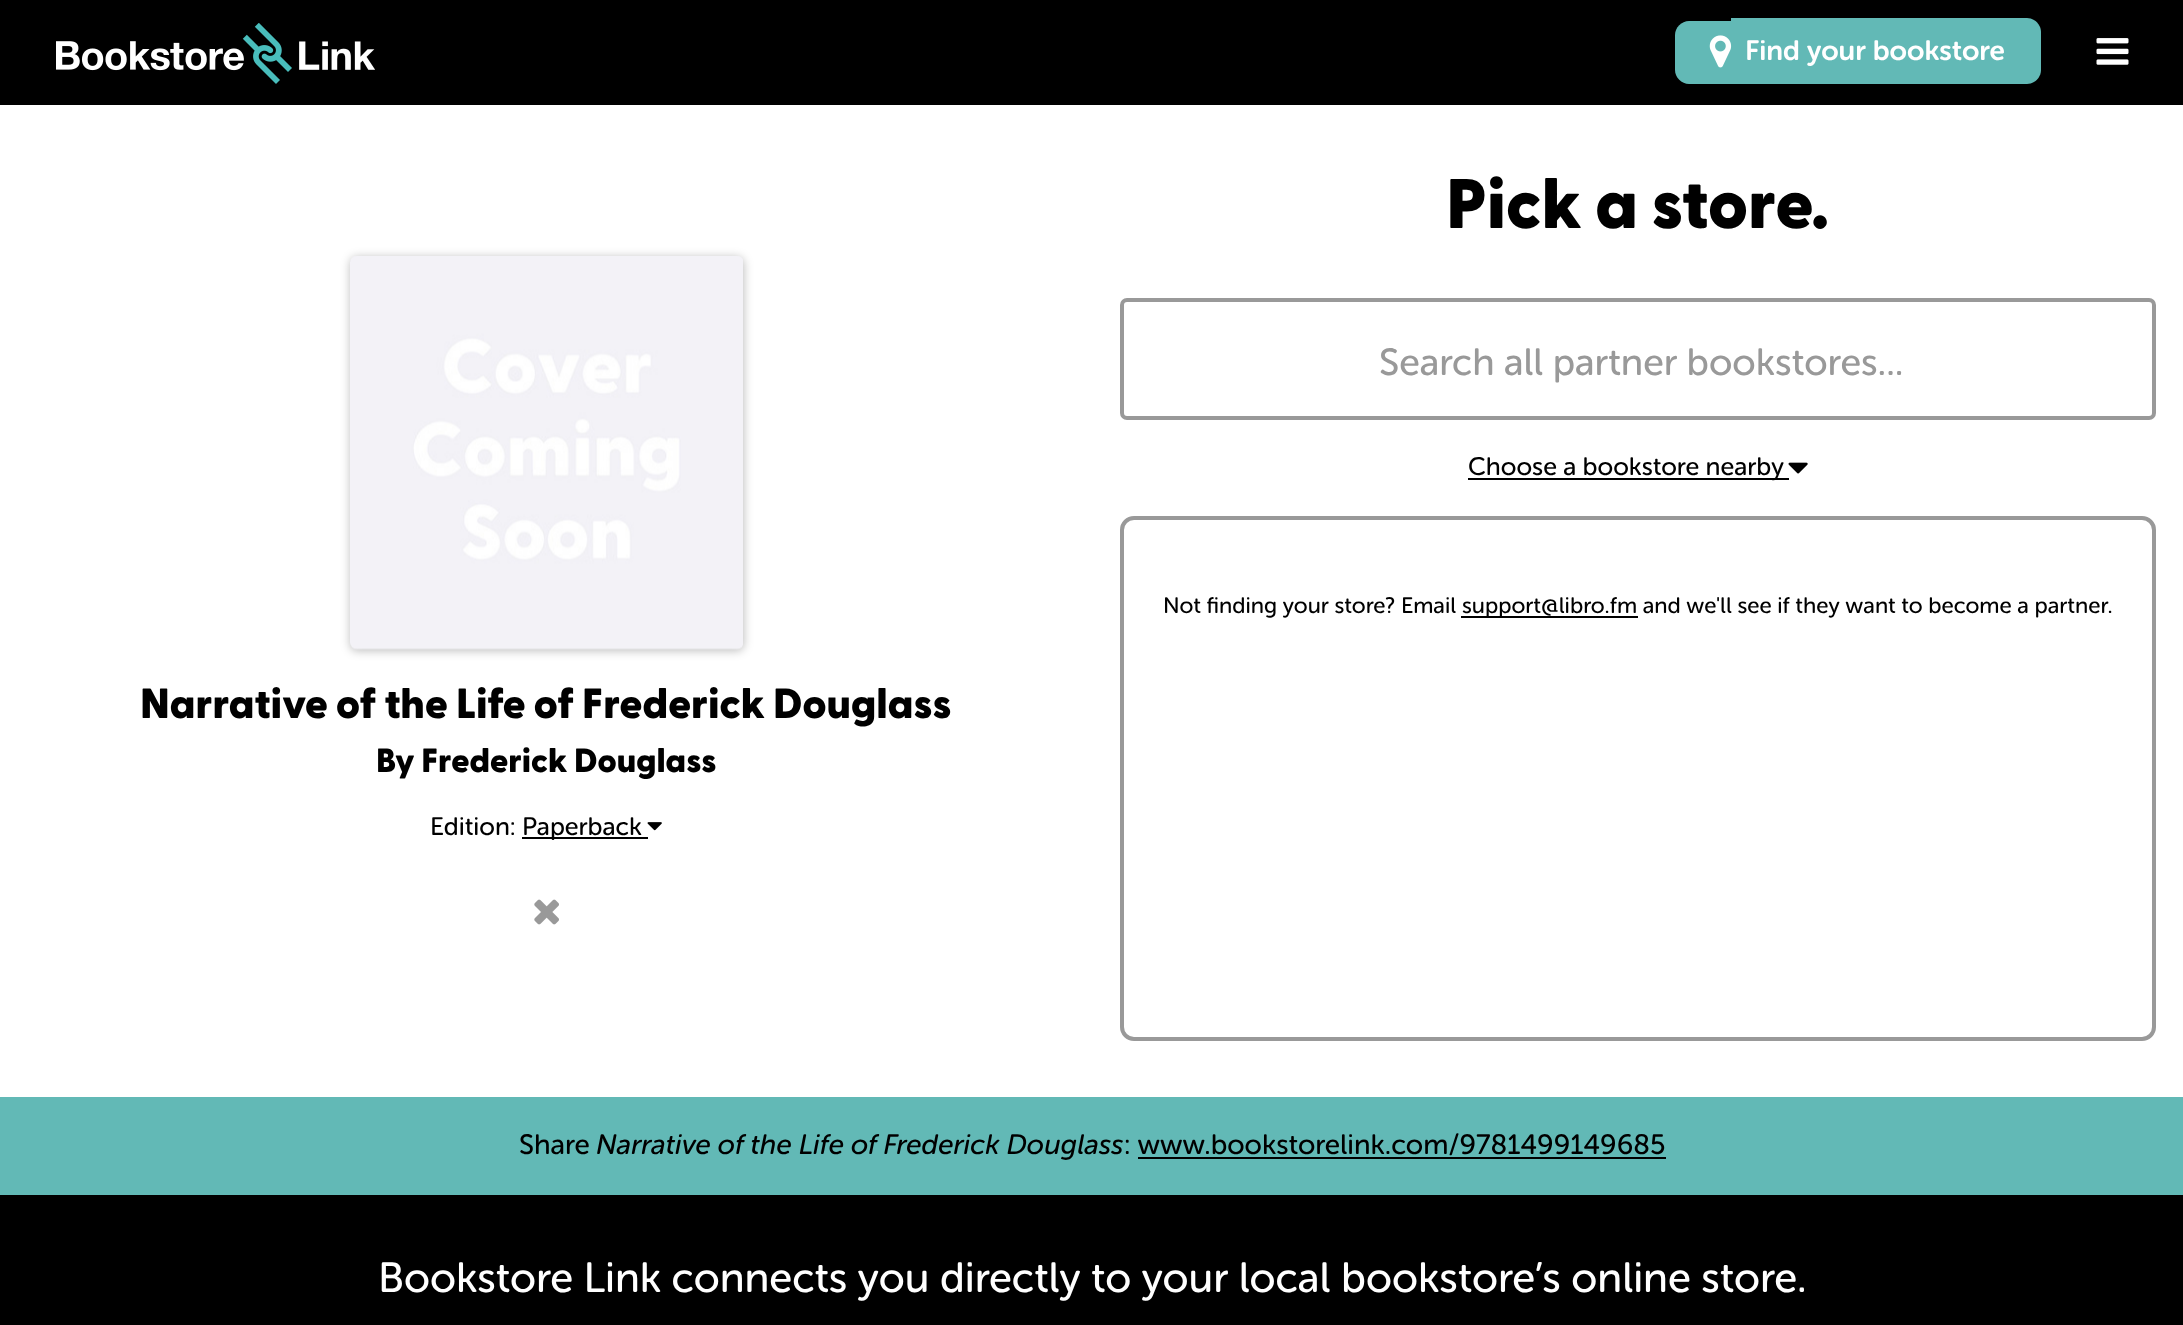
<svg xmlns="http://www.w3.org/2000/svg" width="2183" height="1325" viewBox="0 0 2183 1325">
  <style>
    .t1 { font: 600 28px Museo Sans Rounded; fill: #fff; }
    .t2 { font: 900 70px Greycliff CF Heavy; fill: #000; }
    .t3 { font: 37.75px Museo Sans Rounded; fill: #999; }
    .t4 { font: 25.25px Museo Sans Rounded; fill: #000; }
    .t5 { font: 22.4px Museo Sans Rounded; fill: #000; }
    .t6 { font: 900 42px Greycliff CF Heavy; fill: #000; }
    .t7 { font: 900 33.6px Greycliff CF Heavy; fill: #000; }
    .t8 { font: 28px Museo Sans Rounded; fill: #000; }
    .t9 { font: italic 28px Museo Sans Rounded; fill: #000; }
    .t10 { font: 42px Museo Sans Rounded; fill: #fff; }
  </style>
  <rect width="100%" height="100%" fill="#fff"/>
  <rect x="0" y="0" width="2183" height="105" fill="#000"/>
  <image x="56" y="23" width="319" height="61" href="images/1.png"/>
  <path d="M1689 21H1731V84H1689C1681.5 84 1675 77.5 1675 70V35C1675 27.5 1681.5 21 1689 21Z" fill="#62b9b6"/>
  <path d="M1731 18H2027C2034.5 18 2041 24.5 2041 32V70C2041 77.5 2034.5 84 2027 84H1731Z" fill="#62b9b6"/>
  <image x="1709" y="35" width="23" height="33" href="images/2.png"/>
  <text x="1745" y="60" class="t1">Find your bookstore</text>
  <image x="2096" y="38" width="33" height="27" href="images/3.png"/>
  <text x="1446" y="228" class="t2">Pick a store.</text>
  <rect x="1122" y="300" width="1032" height="118" rx="5" fill="none" stroke="#999" stroke-width="4"/>
  <text x="1379" y="375" class="t3">Search all partner bookstores...</text>
  <rect x="1468" y="478" width="321" height="2" fill="#000"/>
  <text x="1468" y="475" class="t4">Choose a bookstore nearby</text>
  <image x="1788" y="462" width="20" height="12" href="images/4.png"/>
  <rect x="1122" y="518" width="1032" height="521" rx="12" fill="none" stroke="#999" stroke-width="4"/>
  <text x="1163" y="613" class="t5">Not finding your store? Email</text>
  <rect x="1461" y="616" width="177" height="2" fill="#000"/>
  <text x="1462" y="613" class="t5">support@libro.fm and we'll see if they want to become a partner.</text>
  <rect x="350" y="257" width="394" height="394" rx="7" fill="#00000040" filter="blur(5px)"/>
  <image x="350" y="256" width="393" height="394" href="images/5.png"/>
  <text x="140" y="718" class="t6">Narrative of the Life of Frederick Douglass</text>
  <text x="376" y="772" class="t7">By Frederick Douglass</text>
  <text x="430" y="835" class="t4">Edition:</text>
  <rect x="522" y="837" width="126" height="2" fill="#000"/>
  <text x="522" y="835" class="t4">Paperback</text>
  <image x="647" y="822" width="15" height="9" href="images/6.png"/>
  <image x="534" y="899" width="25" height="26" href="images/7.png"/>
  <rect x="0" y="1097" width="2183" height="98" fill="#62b9b6"/>
  <text x="519" y="1154" class="t8">Share</text>
  <text x="596" y="1154" class="t9">Narrative of the Life of Frederick Douglass</text>
  <text x="1124" y="1154" class="t8">: www.bookstorelink.com/9781499149685</text>
  <rect x="1138" y="1157" width="528" height="2" fill="#000"/>
  <rect x="0" y="1195" width="2183" height="130" fill="#000"/>
  <text x="378" y="1292" class="t10">Bookstore Link connects you directly to your local bookstore’s online store.</text>
</svg>
